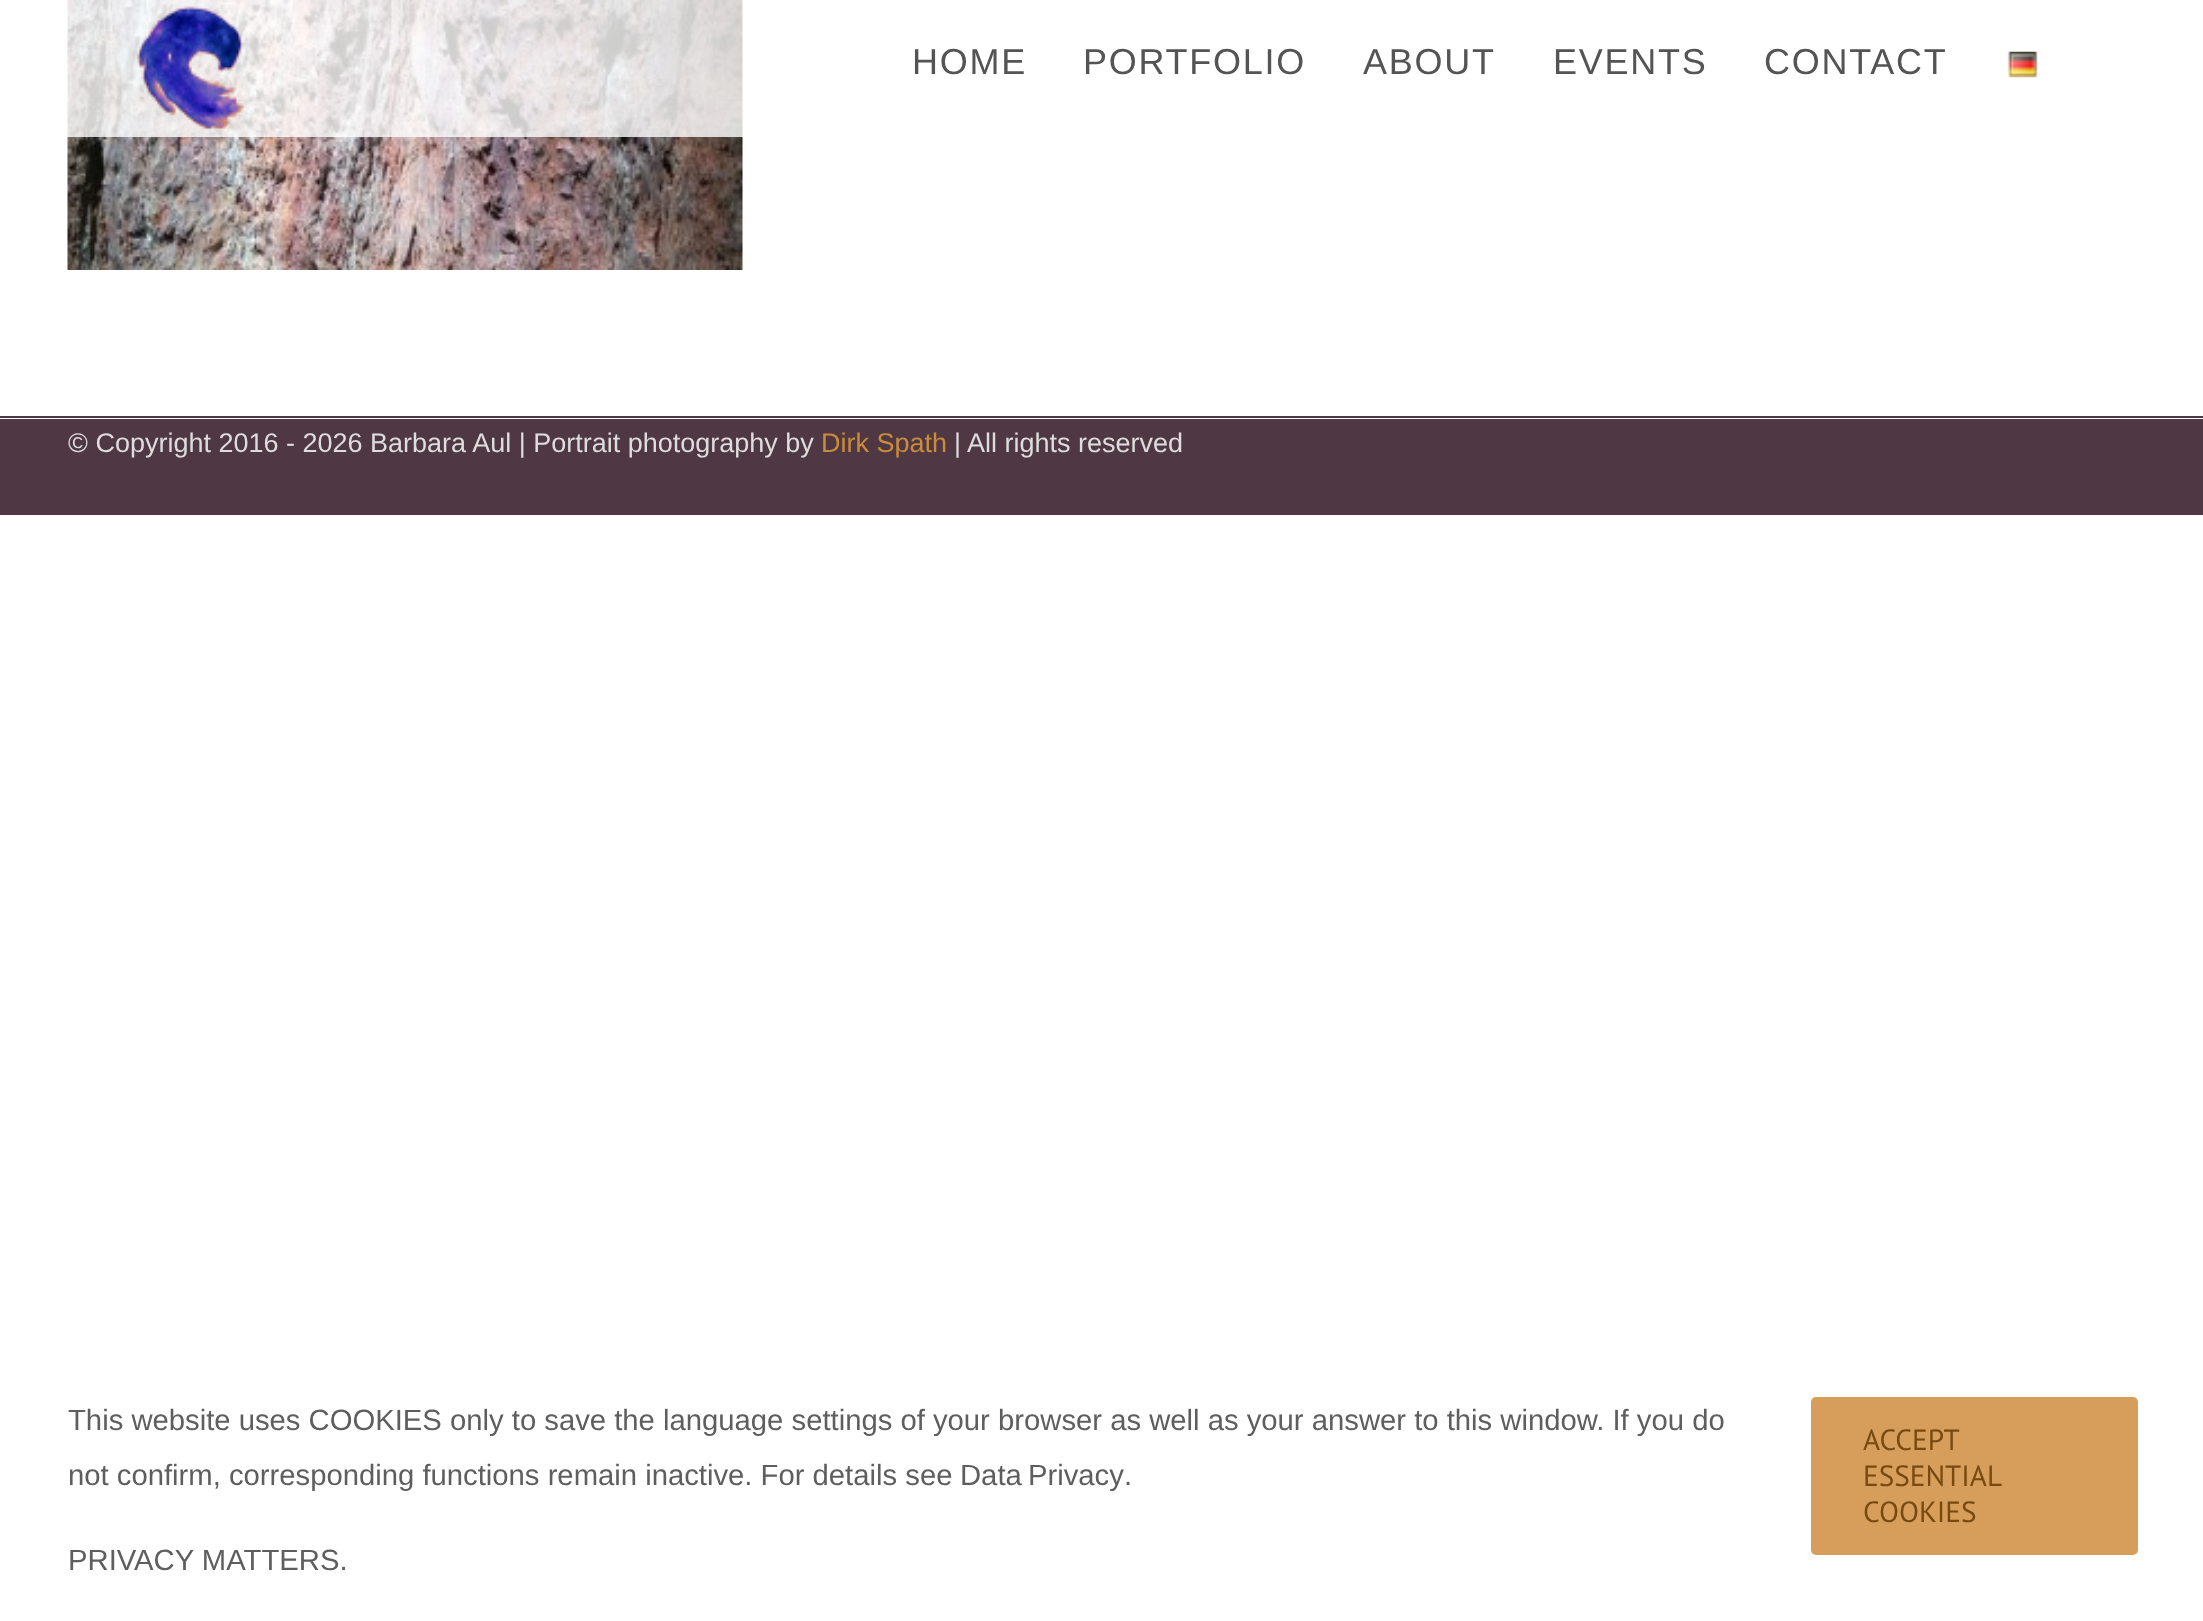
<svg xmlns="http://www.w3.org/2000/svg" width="2203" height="1621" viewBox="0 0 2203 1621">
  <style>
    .t1 { font: 36px Liberation Sans; letter-spacing: 1.75px; fill: #545454; }
    .t2 { font: 27px Liberation Sans; fill: #ddd; }
    .t3 { font: 27px Liberation Sans; fill: #c98c3c; }
    .t4 { font: 29.25px Liberation Sans; fill: #5e5e5e; }
    .t5 { font: 29.25px PT Sans; fill: #784910; }
  </style>
  <rect width="100%" height="100%" fill="#fff"/>
  <image x="67" y="0" width="676" height="270" href="images/1.png"/>
  <rect x="67" y="0" width="676" height="137" fill="#ffffffcc"/>
  <image x="136" y="6" width="110" height="125" href="images/2.png"/>
  <text x="912" y="74" class="t1">HOME</text>
  <text x="1083" y="74" class="t1">PORTFOLIO</text>
  <text x="1363" y="74" class="t1">ABOUT</text>
  <text x="1553" y="74" class="t1">EVENTS</text>
  <text x="1764" y="74" class="t1">CONTACT</text>
  <image x="2007" y="51" width="31" height="27" href="images/3.png"/>
  <rect x="0" y="416" width="2203" height="2" fill="#4f3843"/>
  <rect x="0" y="419" width="2203" height="96" fill="#4f3843"/>
  <text x="68" y="452" class="t2">© Copyright 2016 - 2026 Barbara Aul | Portrait photography by</text>
  <text x="821" y="452" class="t3">Dirk Spath</text>
  <text x="954" y="452" class="t2">| All rights reserved</text>
  <text x="68" y="1430" class="t4">This website uses COOKIES only to save the language settings of your browser as well as your answer to this window. If you do</text>
  <text x="68" y="1485" class="t4">not confirm, corresponding functions remain inactive. For details see</text>
  <text x="960" y="1485" word-spacing="-2" class="t4">Data Privacy</text>
  <text x="1124" y="1485" class="t4">.</text>
  <text x="68" y="1570" class="t4">PRIVACY MATTERS.</text>
  <rect x="1811" y="1397" width="327" height="158" rx="5" fill="#d69e5a"/>
  <text x="1863" y="1450" class="t5">ACCEPT</text>
  <text x="1863" y="1486" class="t5">ESSENTIAL</text>
  <text x="1863" y="1522" class="t5">COOKIES</text>
</svg>
